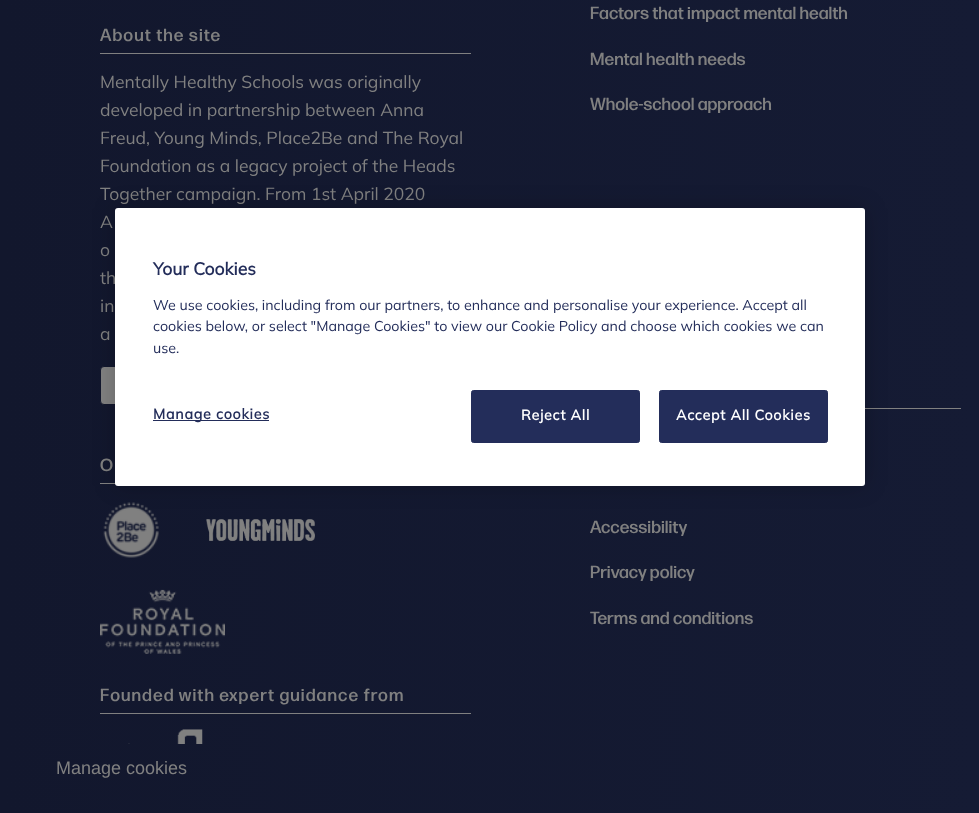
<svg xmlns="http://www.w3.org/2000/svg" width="979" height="813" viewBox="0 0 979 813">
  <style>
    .t1 { font: 500 17.5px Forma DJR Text; letter-spacing: 1.05px; fill: #808080; }
    .t2 { font: 17.5px Mulish; fill: #808080; }
    .t3 { font: 500 17.5px Forma DJR Text; fill: #808080; }
    .t4 { font: bold 17.5px Mulish; fill: #232d5a; }
    .t5 { font: 14.25px Mulish; fill: #232d5a; }
    .t6 { font: bold 14.25px Mulish; letter-spacing: 0.75px; fill: #232d5a; }
    .t7 { font: bold 14.25px Mulish; letter-spacing: 0.75px; fill: #fff; }
    .t8 { font: 18px Liberation Sans; fill: #808080; }
  </style>
  <defs>
    <linearGradient id="g1" gradientUnits="userSpaceOnUse" x1="0" y1="314" x2="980" y2="314"><stop offset="0" stop-color="#12172d"/><stop offset="1" stop-color="#151b34"/></linearGradient>
  </defs>
  <rect width="100%" height="100%" fill="#fff"/>
  <rect x="0" y="0" width="979" height="813" fill="url(#g1)"/>
  <text x="100" y="41" class="t1">About the site</text>
  <rect x="100" y="53" width="371" height="1" fill="#808080"/>
  <text x="100" y="88" class="t2">Mentally Healthy Schools was originally</text>
  <text x="100" y="116" class="t2">developed in partnership between Anna</text>
  <text x="100" y="144" class="t2">Freud, Young Minds, Place2Be and The Royal</text>
  <text x="100" y="172" class="t2">Foundation as a legacy project of the Heads</text>
  <text x="100" y="200" class="t2">Together campaign. From 1st April 2020</text>
  <text x="100" y="228" class="t2">A</text>
  <text x="100" y="256" class="t2">o</text>
  <text x="100" y="284" class="t2">th</text>
  <text x="100" y="312" class="t2">in</text>
  <text x="100" y="340" class="t2">a</text>
  <rect x="100.5" y="366.5" width="164" height="38" rx="3.5" fill="#808080" stroke="#12172d"/>
  <text x="590" y="19" class="t3">Factors that impact mental health</text>
  <text x="590" y="65" class="t3">Mental health needs</text>
  <text x="590" y="110" class="t3">Whole-school approach</text>
  <text x="100" y="471" class="t1">O</text>
  <rect x="100" y="483" width="16" height="1" fill="#808080"/>
  <image x="103" y="502" width="56" height="56" href="images/1.png"/>
  <image x="206" y="519" width="109" height="22" href="images/2.png"/>
  <image x="100" y="589" width="125" height="65" href="images/3.png"/>
  <rect x="865" y="408" width="96" height="1" fill="#808080"/>
  <text x="590" y="533" class="t3">Accessibility</text>
  <text x="590" y="578" class="t3">Privacy policy</text>
  <text x="590" y="624" class="t3">Terms and conditions</text>
  <text x="100" y="701" class="t1">Founded with expert guidance from</text>
  <rect x="100" y="713" width="371" height="1" fill="#808080"/>
  <image x="128" y="729" width="75" height="15" href="images/4.png"/>
  <rect x="115" y="208" width="750" height="278" rx="3" fill="#00000033" filter="blur(11px)"/>
  <rect x="115" y="208" width="750" height="278" rx="3" fill="#fff"/>
  <text x="153" y="275" class="t4">Your Cookies</text>
  <text x="153" y="310" class="t5">We use cookies, including from our partners, to enhance and personalise your experience. Accept all</text>
  <text x="153" y="331" class="t5">cookies below, or select "Manage Cookies" to view our Cookie Policy and choose which cookies we can</text>
  <text x="153" y="353" class="t5">use.</text>
  <rect x="153" y="420" width="116" height="1" fill="#232d5a"/>
  <text x="153" y="419" class="t6">Manage cookies</text>
  <rect x="471.5" y="390.5" width="168" height="52" rx="2" fill="#232d5a" stroke="#232d5a"/>
  <text x="521" y="420" class="t7">Reject All</text>
  <rect x="659.5" y="390.5" width="168" height="52" rx="2" fill="#232d5a" stroke="#232d5a"/>
  <text x="676" y="420" class="t7">Accept All Cookies</text>
  <text x="56" y="774" class="t8">Manage cookies</text>
</svg>
